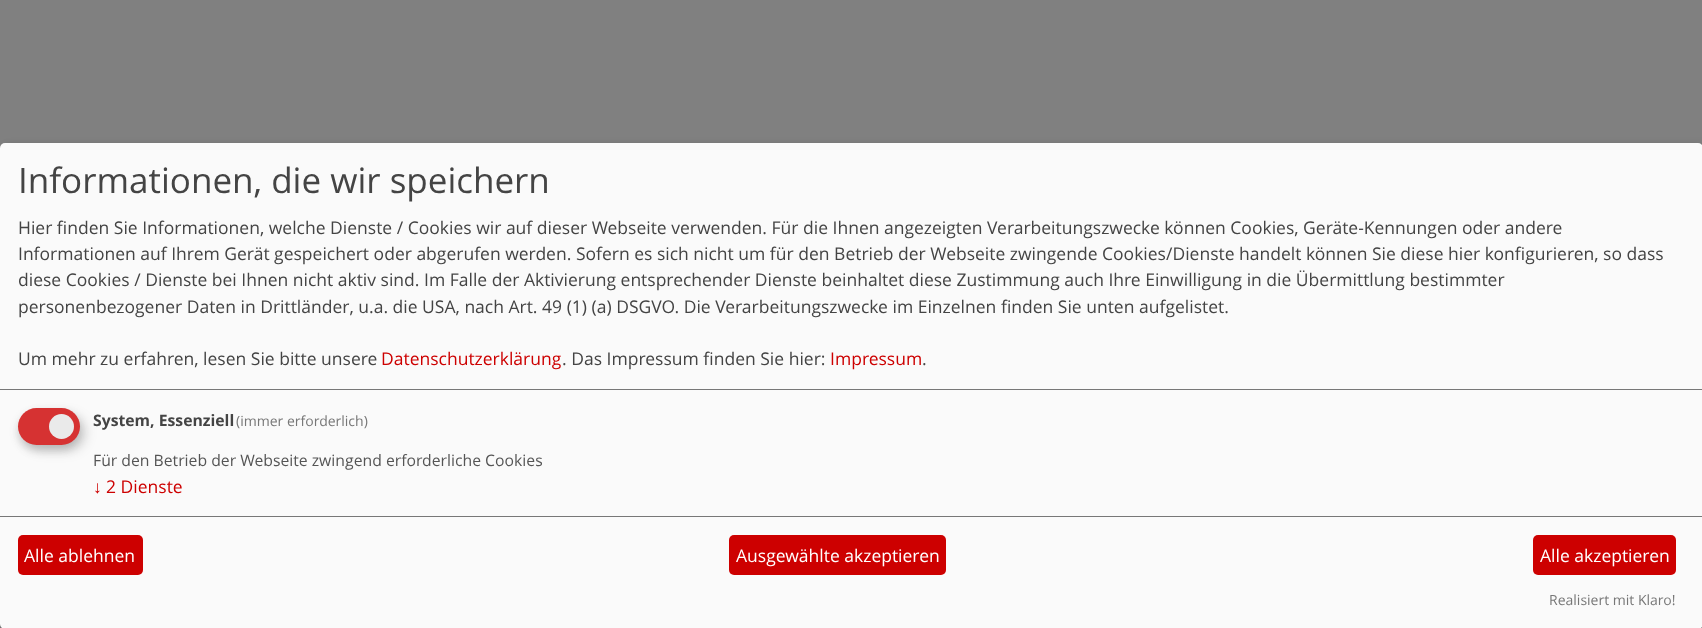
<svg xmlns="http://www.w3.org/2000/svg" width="1702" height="628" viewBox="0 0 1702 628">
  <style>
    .t1 { font: 35px Open Sans; fill: #444; }
    .t2 { font: 17.5px Open Sans; fill: #444; }
    .t3 { font: 17.5px Open Sans; fill: #cd0000; }
    .t4 { font: bold 15.75px Open Sans; fill: #444; }
    .t5 { font: 14px Open Sans; fill: #777; }
    .t6 { font: 15.75px Open Sans; fill: #555; }
    .t7 { font: 17.5px Liberation Sans; fill: #cd0000; }
    .t8 { font: 17.5px Open Sans; fill: #fff; }
  </style>
  <rect width="100%" height="100%" fill="#808080"/>
  <rect x="6" y="149" width="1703" height="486" rx="5" fill="#00000030" filter="blur(6px)"/>
  <rect x="0" y="148" width="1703" height="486" rx="5" fill="#00000033" filter="blur(4px)"/>
  <rect x="0" y="143" width="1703" height="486" rx="5" fill="#fafafa"/>
  <rect x="0" y="389" width="1702" height="1" fill="#777"/>
  <text x="18" y="193" class="t1">Informationen, die wir speichern</text>
  <text x="18" y="234" class="t2">Hier finden Sie Informationen, welche Dienste / Cookies wir auf dieser Webseite verwenden. Für die Ihnen angezeigten Verarbeitungszwecke können Cookies, Geräte-Kennungen oder andere</text>
  <text x="18" y="260" class="t2">Informationen auf Ihrem Gerät gespeichert oder abgerufen werden. Sofern es sich nicht um für den Betrieb der Webseite zwingende Cookies/Dienste handelt können Sie diese hier konfigurieren, so dass</text>
  <text x="18" y="286" class="t2">diese Cookies / Dienste bei Ihnen nicht aktiv sind. Im Falle der Aktivierung entsprechender Dienste beinhaltet diese Zustimmung auch Ihre Einwilligung in die Übermittlung bestimmter</text>
  <text x="18" y="313" class="t2">personenbezogener Daten in Drittländer, u.a. die USA, nach Art. 49 (1) (a) DSGVO. Die Verarbeitungszwecke im Einzelnen finden Sie unten aufgelistet.</text>
  <text x="18" y="365" class="t2">Um mehr zu erfahren, lesen Sie bitte unsere</text>
  <text x="381" y="365" class="t3">Datenschutzerklärung</text>
  <text x="562" y="365" class="t2">. Das Impressum finden Sie hier:</text>
  <text x="830" y="365" class="t3">Impressum</text>
  <text x="922" y="365" class="t2">.</text>
  <rect x="24" y="414" width="62" height="37" rx="18.5" fill="#00000026" filter="blur(6px)"/>
  <rect x="18" y="413" width="62" height="37" rx="18.5" fill="#32323233" filter="blur(4px)"/>
  <rect x="18" y="408" width="62" height="37" rx="18.5" fill="#d63232"/>
  <circle cx="61.5" cy="426.5" r="12.5" fill="#eaeaea"/>
  <text x="93" y="426" class="t4">System, Essenziell</text>
  <text x="236" y="426" class="t5">(immer erforderlich)</text>
  <text x="93" y="466" class="t6">Für den Betrieb der Webseite zwingend erforderliche Cookies</text>
  <text x="93" y="493" class="t7">↓</text>
  <text x="106" y="493" class="t3">2 Dienste</text>
  <rect x="0" y="516" width="1702" height="1" fill="#777"/>
  <rect x="18" y="535" width="125" height="40" rx="5" fill="#cd0000"/>
  <text x="24" y="562" class="t8">Alle ablehnen</text>
  <rect x="729" y="535" width="217" height="40" rx="5" fill="#cd0000"/>
  <text x="736" y="562" class="t8">Ausgewählte akzeptieren</text>
  <rect x="1533" y="535" width="143" height="40" rx="5" fill="#cd0000"/>
  <text x="1540" y="562" class="t8">Alle akzeptieren</text>
  <text x="1549" y="605" class="t5">Realisiert mit Klaro!</text>
</svg>
